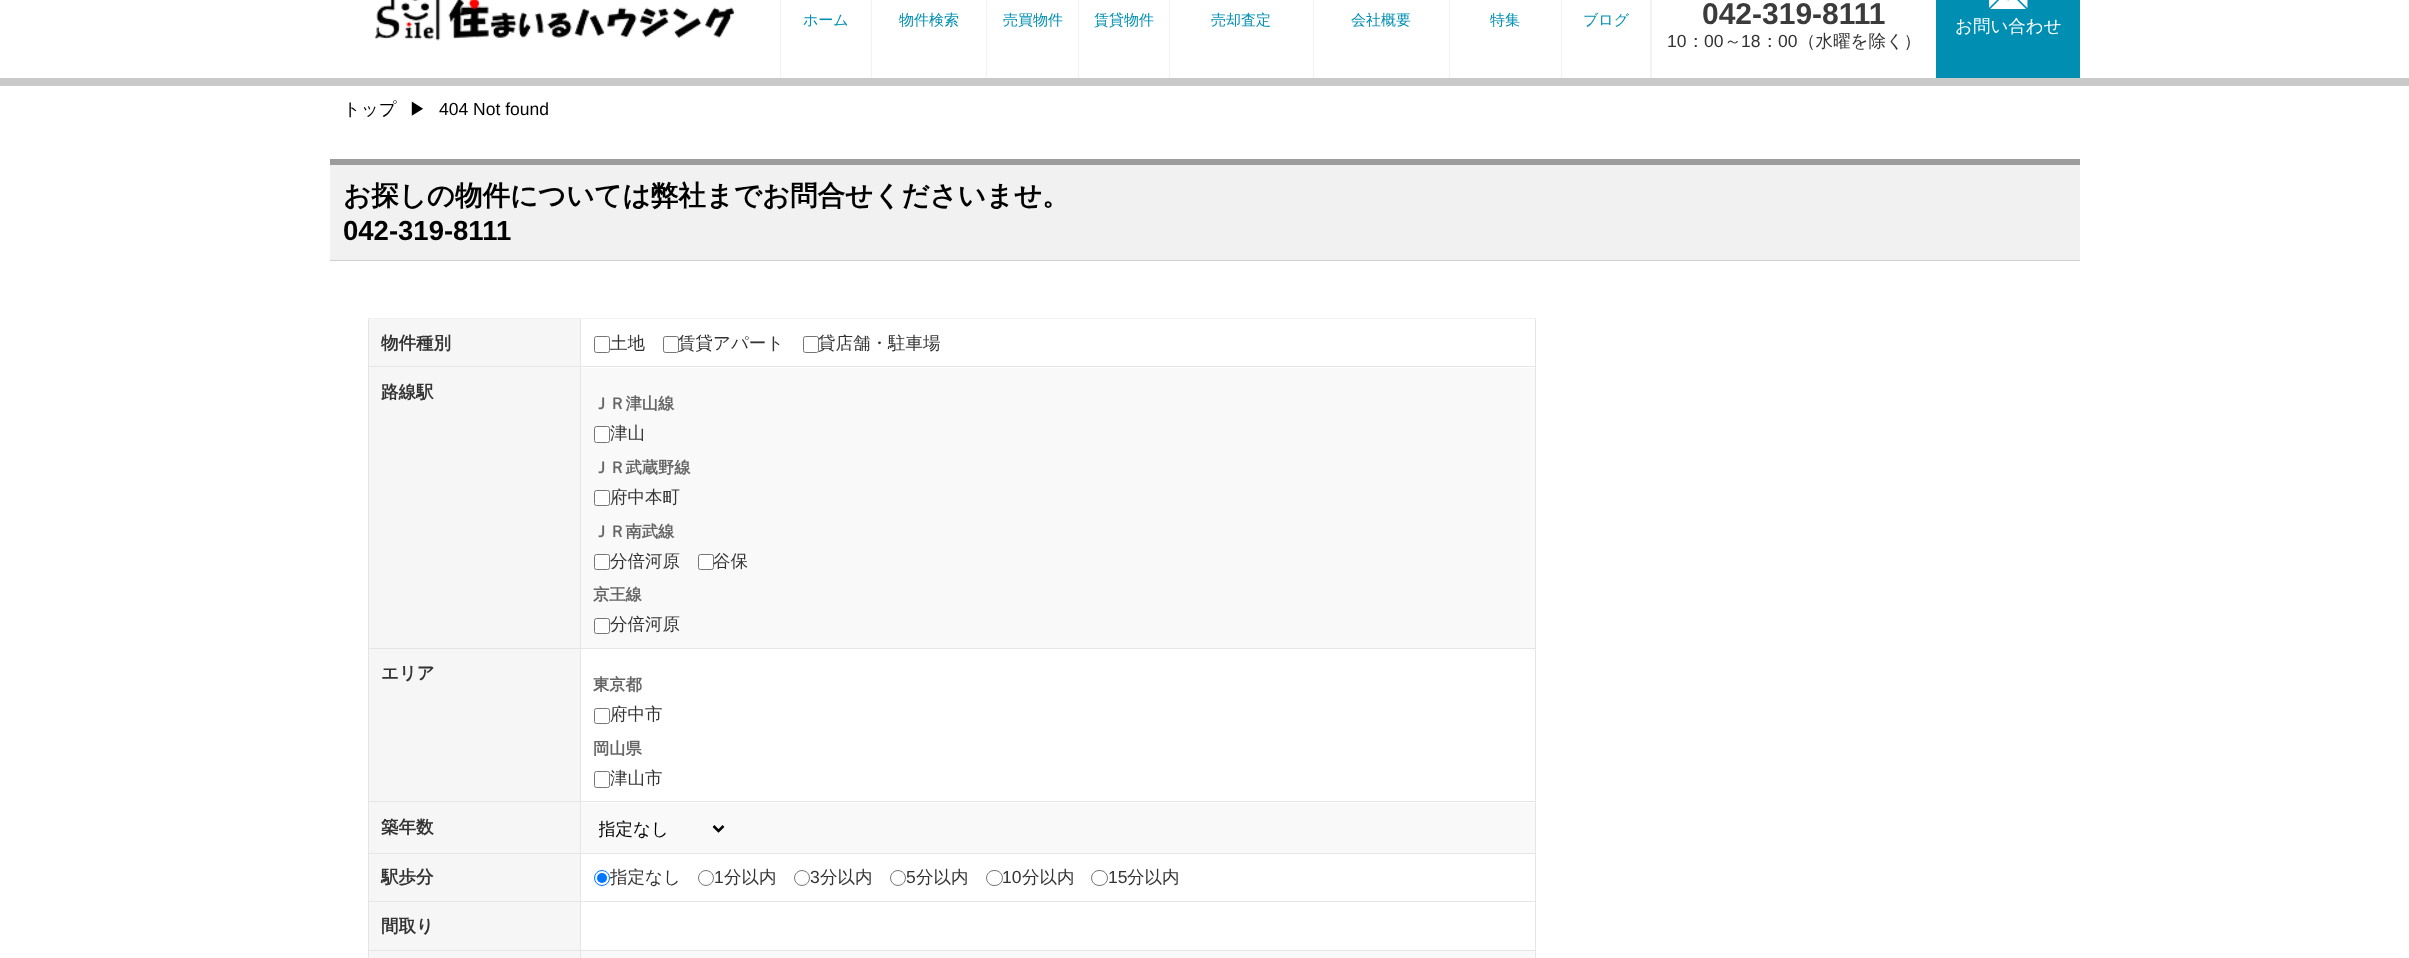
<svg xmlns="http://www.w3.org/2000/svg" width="2409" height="958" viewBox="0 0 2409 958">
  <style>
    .t1 { font: 500 15px WenQuanYi Zen Hei; fill: #008fb3; }
    .t2 { font: bold 30px Liberation Sans; fill: #3b3b3b; }
    .t3 { font: 17.5px Liberation Sans; fill: #333; }
    .t4 { font: 500 17.5px WenQuanYi Zen Hei; fill: #333; }
    .t5 { font: 500 17.5px WenQuanYi Zen Hei; fill: #fff; }
    .t6 { font: 500 17.5px WenQuanYi Zen Hei; fill: #000; }
    .t7 { font: 17.5px Liberation Sans; fill: #000; }
    .t8 { font: bold 27.5px WenQuanYi Zen Hei; fill: #000; }
    .t9 { font: bold 27.5px Liberation Sans; fill: #000; }
    .t10 { font: bold 17.5px WenQuanYi Zen Hei; fill: #333; }
    .t11 { font: bold 16.25px WenQuanYi Zen Hei; fill: #666; }
  </style>
  <defs>
    <clipPath id="clip1"><rect x="599" y="818" width="110" height="22"/></clipPath>
  </defs>
  <rect width="100%" height="100%" fill="#fff"/>
  <rect x="0" y="78" width="2409" height="8" fill="#c9c9c9"/>
  <image x="374" y="0" width="361" height="41" href="images/1.png"/>
  <rect x="780" y="0" width="1" height="78" fill="#f2f2f2"/>
  <text x="803" y="25" class="t1">ホーム</text>
  <rect x="871" y="0" width="1" height="78" fill="#f2f2f2"/>
  <text x="899" y="25" class="t1">物件検索</text>
  <rect x="986" y="0" width="1" height="78" fill="#f2f2f2"/>
  <text x="1003" y="25" class="t1">売買物件</text>
  <rect x="1078" y="0" width="1" height="78" fill="#f2f2f2"/>
  <text x="1094" y="25" class="t1">賃貸物件</text>
  <rect x="1169" y="0" width="1" height="78" fill="#f2f2f2"/>
  <text x="1211" y="25" class="t1">売却査定</text>
  <rect x="1313" y="0" width="1" height="78" fill="#f2f2f2"/>
  <text x="1351" y="25" class="t1">会社概要</text>
  <rect x="1449" y="0" width="1" height="78" fill="#f2f2f2"/>
  <text x="1490" y="25" class="t1">特集</text>
  <rect x="1561" y="0" width="1" height="78" fill="#f2f2f2"/>
  <text x="1583" y="25" class="t1">ブログ</text>
  <rect x="1650" y="0" width="2" height="78" fill="#f2f2f2"/>
  <text x="1702" y="24" class="t2">042-319-8111</text>
  <text x="1667" y="47" class="t3">10</text>
  <text x="1687" y="47" class="t4">：</text>
  <text x="1704" y="47" class="t3">00</text>
  <text x="1724" y="47" class="t4">～</text>
  <text x="1741" y="47" class="t3">18</text>
  <text x="1761" y="47" class="t4">：</text>
  <text x="1778" y="47" class="t3">00</text>
  <text x="1798" y="47" class="t4">（水曜を除く）</text>
  <rect x="1936" y="0" width="144" height="78" fill="#008fb3"/>
  <image x="1989" y="0" width="39" height="9" href="images/2.png"/>
  <text x="1955" y="32" class="t5">お問い合わせ</text>
  <text x="343" y="115" class="t6">トップ</text>
  <text x="409" y="115" class="t6">▶</text>
  <text x="439" y="115" class="t7">404 Not found</text>
  <rect x="330" y="165" width="1750" height="95" fill="#f1f1f1"/>
  <rect x="330" y="159" width="1750" height="6" fill="#9c9c9c"/>
  <rect x="330" y="260" width="1750" height="1" fill="#cecece"/>
  <text x="343" y="205" class="t8">お探しの物件については弊社までお問合せくださいませ。</text>
  <text x="343" y="240" class="t9">042-319-8111</text>
  <rect x="581" y="951" width="955" height="7" fill="#f9f9f9"/>
  <rect x="1535" y="318" width="1" height="640" fill="#e5e5e5"/>
  <rect x="368" y="318" width="1" height="640" fill="#e5e5e5"/>
  <rect x="369" y="319" width="211" height="329" fill="#f6f6f6"/>
  <rect x="580" y="318" width="956" height="1" fill="#f1f1f1"/>
  <rect x="580" y="950" width="1" height="8" fill="#e5e5e5"/>
  <rect x="580" y="950" width="956" height="1" fill="#e5e5e5"/>
  <rect x="580" y="901" width="1" height="50" fill="#e5e5e5"/>
  <rect x="580" y="901" width="956" height="1" fill="#e5e5e5"/>
  <rect x="580" y="853" width="1" height="50" fill="#e5e5e5"/>
  <rect x="580" y="853" width="956" height="1" fill="#e5e5e5"/>
  <rect x="580" y="801" width="1" height="53" fill="#e5e5e5"/>
  <rect x="580" y="801" width="956" height="1" fill="#e5e5e5"/>
  <rect x="580" y="648" width="1" height="155" fill="#e5e5e5"/>
  <rect x="580" y="648" width="956" height="1" fill="#e5e5e5"/>
  <rect x="580" y="366" width="1" height="283" fill="#e5e5e5"/>
  <rect x="580" y="366" width="956" height="1" fill="#e5e5e5"/>
  <rect x="580" y="318" width="1" height="50" fill="#e5e5e5"/>
  <rect x="368" y="318" width="213" height="1" fill="#f1f1f1"/>
  <rect x="368" y="366" width="213" height="1" fill="#e5e5e5"/>
  <text x="381" y="349" class="t10">物件種別</text>
  <rect x="594.5" y="336.5" width="15" height="16" rx="2" fill="none" stroke="#767676"/>
  <text x="610" y="349" class="t4">土地</text>
  <rect x="663.5" y="336.5" width="15" height="16" rx="2" fill="none" stroke="#767676"/>
  <text x="678" y="349" class="t4">賃貸アパート</text>
  <rect x="803.5" y="336.5" width="15" height="16" rx="2" fill="none" stroke="#767676"/>
  <text x="818" y="349" class="t4">貸店舗・駐車場</text>
  <rect x="581" y="368" width="954" height="280" fill="#f9f9f9"/>
  <rect x="368" y="648" width="213" height="1" fill="#e5e5e5"/>
  <text x="381" y="398" class="t10">路線駅</text>
  <text x="593" y="409" class="t11">ＪＲ津山線</text>
  <rect x="594.5" y="426.5" width="15" height="16" rx="2" fill="#fff" stroke="#767676"/>
  <text x="610" y="439" class="t4">津山</text>
  <text x="593" y="473" class="t11">ＪＲ武蔵野線</text>
  <rect x="594.5" y="490.5" width="15" height="15" rx="2" fill="#fff" stroke="#767676"/>
  <text x="610" y="503" class="t4">府中本町</text>
  <text x="593" y="537" class="t11">ＪＲ南武線</text>
  <rect x="594.5" y="554.5" width="15" height="15" rx="2" fill="#fff" stroke="#767676"/>
  <text x="610" y="567" class="t4">分倍河原</text>
  <rect x="698.5" y="554.5" width="15" height="15" rx="2" fill="#fff" stroke="#767676"/>
  <text x="713" y="567" class="t4">谷保</text>
  <text x="593" y="600" class="t11">京王線</text>
  <rect x="594.5" y="618.5" width="15" height="15" rx="2" fill="#fff" stroke="#767676"/>
  <text x="610" y="630" class="t4">分倍河原</text>
  <rect x="369" y="649" width="211" height="204" fill="#f6f6f6"/>
  <rect x="368" y="801" width="213" height="1" fill="#e5e5e5"/>
  <text x="381" y="679" class="t10">エリア</text>
  <text x="593" y="690" class="t11">東京都</text>
  <rect x="594.5" y="708.5" width="15" height="15" rx="2" fill="none" stroke="#767676"/>
  <text x="610" y="720" class="t4">府中市</text>
  <text x="593" y="754" class="t11">岡山県</text>
  <rect x="594.5" y="771.5" width="15" height="16" rx="2" fill="none" stroke="#767676"/>
  <text x="610" y="784" class="t4">津山市</text>
  <rect x="581" y="803" width="954" height="50" fill="#f9f9f9"/>
  <rect x="368" y="853" width="213" height="1" fill="#e5e5e5"/>
  <text x="381" y="833" class="t10">築年数</text>
  <path d="M713.5 826L718.5 831L723.5 826" fill="none" stroke="#000" stroke-width="2.5"/>
  <g clip-path="url(#clip1)">
    <text x="598" y="835" class="t6">指定なし</text>
  </g>
  <rect x="369" y="854" width="211" height="47" fill="#f6f6f6"/>
  <rect x="368" y="901" width="213" height="1" fill="#e5e5e5"/>
  <text x="381" y="883" class="t10">駅歩分</text>
  <circle cx="602" cy="878" r="7.5" fill="none" stroke="#0075ff"/>
  <circle cx="602" cy="878" r="5" fill="#0075ff"/>
  <text x="610" y="883" class="t4">指定なし</text>
  <circle cx="706" cy="878" r="7.5" fill="none" stroke="#767676"/>
  <text x="714" y="883" class="t3">1</text>
  <text x="724" y="883" class="t4">分以内</text>
  <circle cx="802" cy="878" r="7.5" fill="none" stroke="#767676"/>
  <text x="810" y="883" class="t3">3</text>
  <text x="820" y="883" class="t4">分以内</text>
  <circle cx="898" cy="878" r="7.5" fill="none" stroke="#767676"/>
  <text x="906" y="883" class="t3">5</text>
  <text x="916" y="883" class="t4">分以内</text>
  <rect x="986.5" y="870.5" width="16" height="15" rx="7.5" fill="none" stroke="#767676"/>
  <text x="1002" y="883" class="t3">10</text>
  <text x="1022" y="883" class="t4">分以内</text>
  <rect x="1091.5" y="870.5" width="16" height="15" rx="7.5" fill="none" stroke="#767676"/>
  <text x="1108" y="883" class="t3">15</text>
  <text x="1127" y="883" class="t4">分以内</text>
  <rect x="369" y="902" width="211" height="48" fill="#f6f6f6"/>
  <rect x="368" y="950" width="213" height="1" fill="#e5e5e5"/>
  <text x="381" y="932" class="t10">間取り</text>
  <rect x="369" y="951" width="211" height="7" fill="#f6f6f6"/>
</svg>
